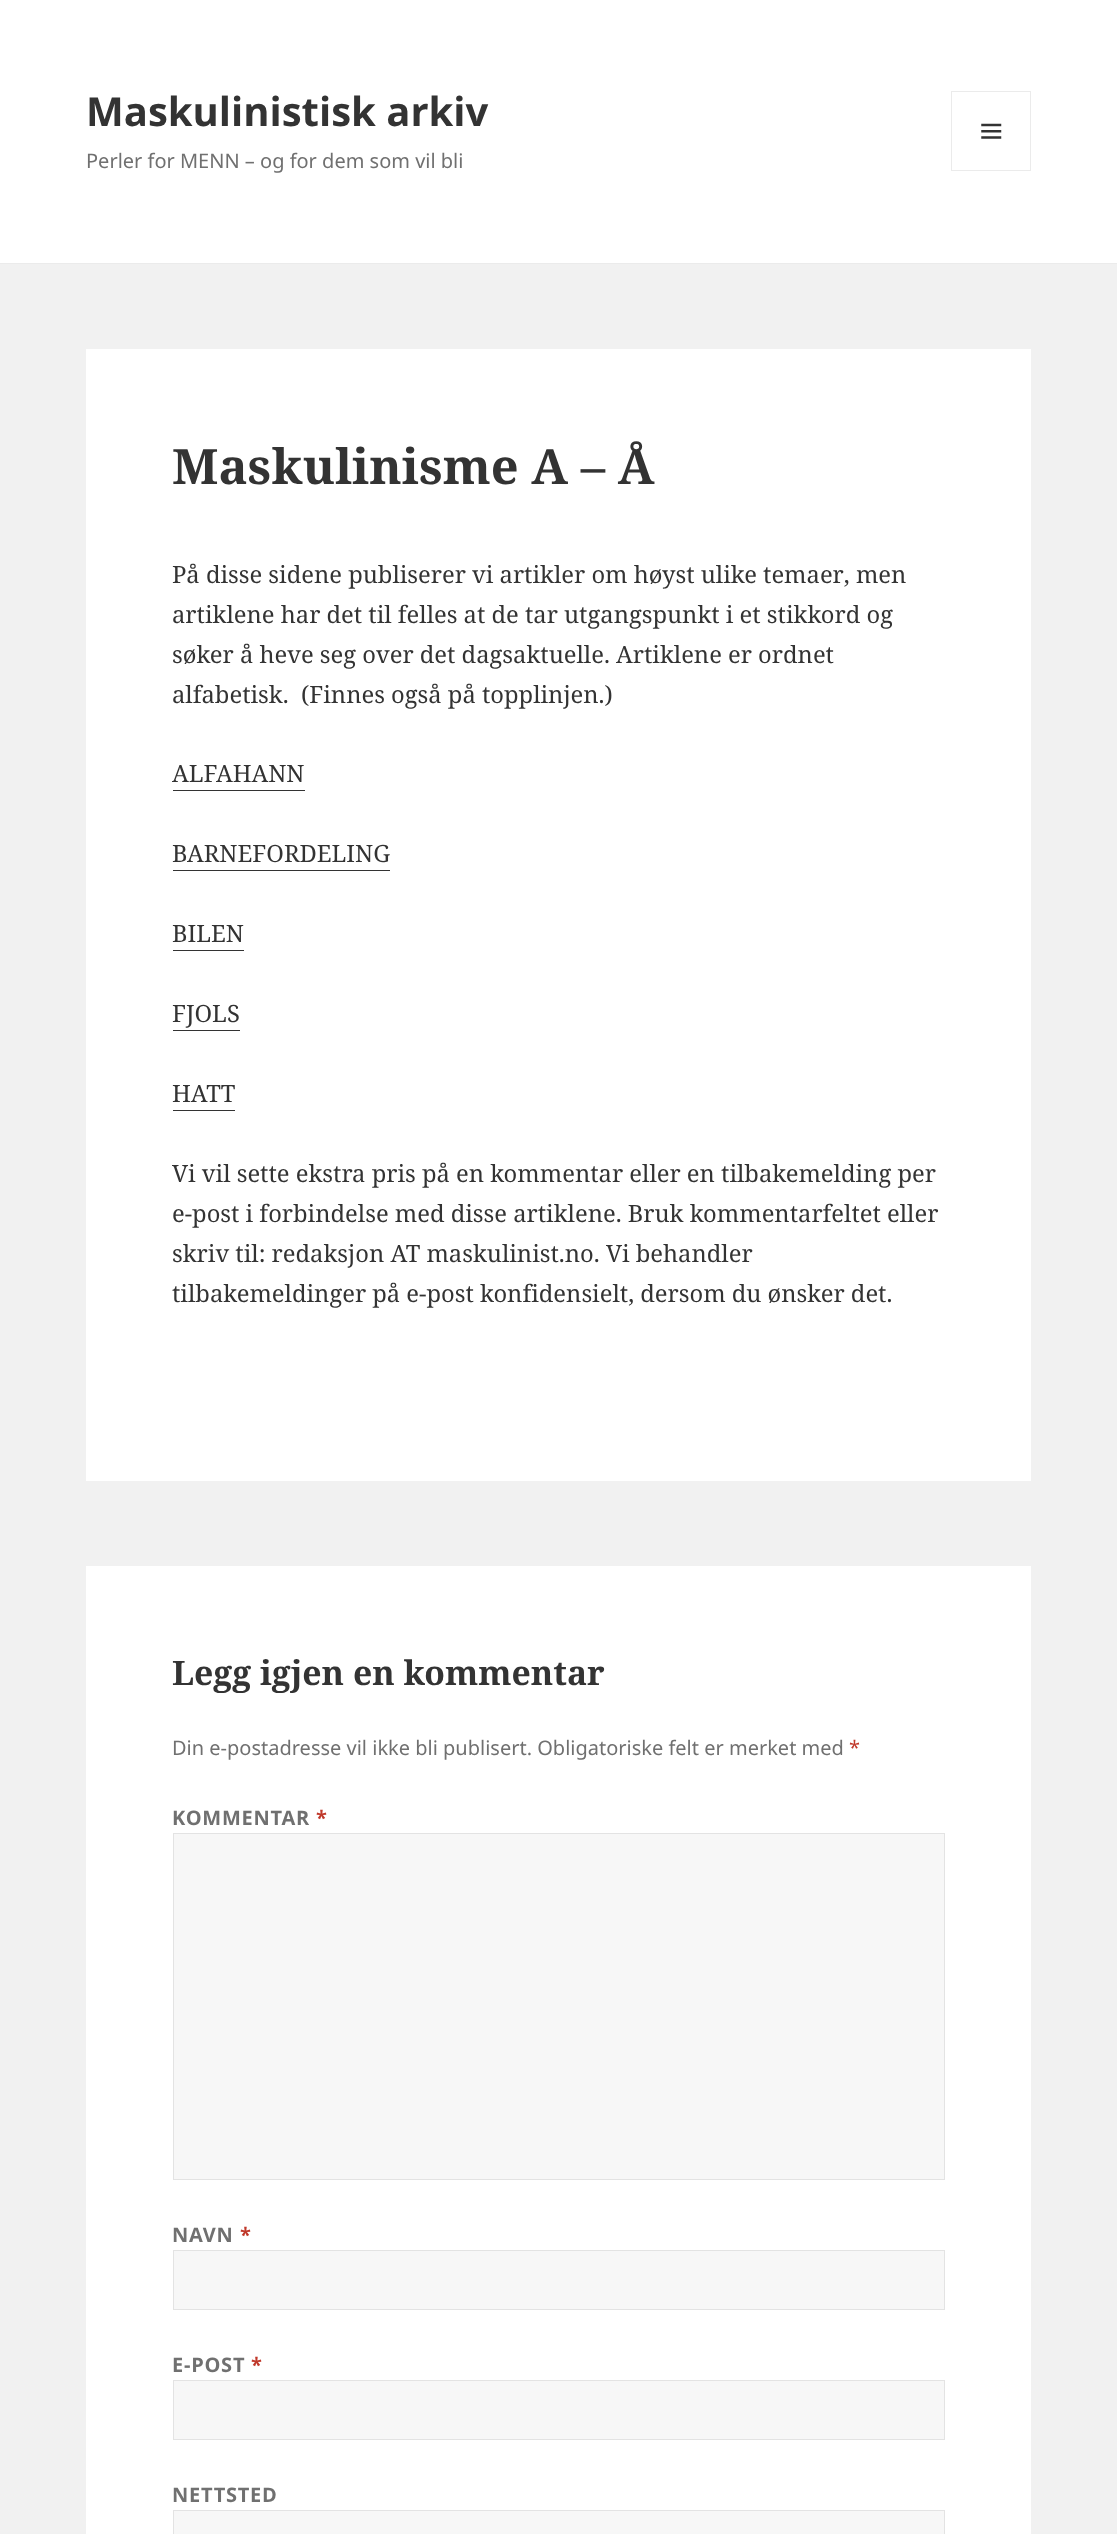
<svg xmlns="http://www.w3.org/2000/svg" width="1117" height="2534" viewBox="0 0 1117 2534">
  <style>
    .t1 { font: bold 40px Noto Sans; fill: #333; }
    .t2 { font: 20px Noto Sans; fill: #707070; }
    .t3 { font: bold 48.75px Noto Serif; fill: #333; }
    .t4 { font: 23.75px Noto Serif; fill: #333; }
    .t5 { font: bold 33.75px Noto Serif; fill: #333; }
    .t6 { font: 20px Noto Sans; fill: #c0392b; }
    .t7 { font: bold 20px Noto Sans; letter-spacing: 0.75px; fill: #707070; }
    .t8 { font: bold 20px Noto Sans; letter-spacing: 0.75px; fill: #c0392b; }
  </style>
  <rect width="100%" height="100%" fill="#f1f1f1"/>
  <rect x="0" y="0" width="1117" height="263" fill="#fff"/>
  <rect x="0" y="263" width="1117" height="1" fill="#ebebeb"/>
  <text x="86" y="126" class="t1">Maskulinistisk arkiv</text>
  <rect x="951.5" y="91.5" width="79" height="79" fill="none" stroke="#ebebeb"/>
  <image x="981" y="123" width="21" height="16" href="images/1.png"/>
  <text x="86" y="168" class="t2">Perler for MENN – og for dem som vil bli</text>
  <rect x="86" y="349" width="945" height="1132" fill="#fff"/>
  <text x="172" y="484" class="t3">Maskulinisme A – Å</text>
  <text x="172" y="583" class="t4">På disse sidene publiserer vi artikler om høyst ulike temaer, men</text>
  <text x="172" y="623" class="t4">artiklene har det til felles at de tar utgangspunkt i et stikkord og</text>
  <text x="172" y="663" class="t4">søker å heve seg over det dagsaktuelle. Artiklene er ordnet</text>
  <text x="172" y="703" class="t4" xml:space="preserve">alfabetisk.  (Finnes også på topplinjen.)</text>
  <text x="172" y="782" class="t4">ALFAHANN</text>
  <rect x="173" y="790" width="132" height="1" fill="#333"/>
  <text x="172" y="862" class="t4">BARNEFORDELING</text>
  <rect x="173" y="870" width="217" height="1" fill="#333"/>
  <text x="172" y="942" class="t4">BILEN</text>
  <rect x="173" y="950" width="71" height="1" fill="#333"/>
  <text x="172" y="1022" class="t4">FJOLS</text>
  <rect x="173" y="1030" width="67" height="1" fill="#333"/>
  <text x="172" y="1102" class="t4">HATT</text>
  <rect x="173" y="1110" width="62" height="1" fill="#333"/>
  <text x="172" y="1182" class="t4">Vi vil sette ekstra pris på en kommentar eller en tilbakemelding per</text>
  <text x="172" y="1222" class="t4">e-post i forbindelse med disse artiklene. Bruk kommentarfeltet eller</text>
  <text x="172" y="1262" class="t4">skriv til: redaksjon AT maskulinist.no. Vi behandler</text>
  <text x="172" y="1302" class="t4">tilbakemeldinger på e-post konfidensielt, dersom du ønsker det.</text>
  <rect x="86" y="1566" width="945" height="968" fill="#fff"/>
  <text x="172" y="1685" class="t5">Legg igjen en kommentar</text>
  <text x="172" y="1755" class="t2">Din e-postadresse vil ikke bli publisert. Obligatoriske felt er merket med</text>
  <text x="849" y="1755" class="t6">*</text>
  <text x="172" y="1825" class="t7">KOMMENTAR</text>
  <text x="316" y="1825" class="t8">*</text>
  <rect x="173.5" y="1833.5" width="771" height="346" fill="#f7f7f7" stroke="#e3e3e3"/>
  <text x="172" y="2242" class="t7">NAVN</text>
  <text x="240" y="2242" class="t8">*</text>
  <rect x="173.5" y="2250.5" width="771" height="59" fill="#f7f7f7" stroke="#e3e3e3"/>
  <text x="172" y="2372" class="t7">E-POST</text>
  <text x="251" y="2372" class="t8">*</text>
  <rect x="173.5" y="2380.5" width="771" height="59" fill="#f7f7f7" stroke="#e3e3e3"/>
  <text x="172" y="2502" class="t7">NETTSTED</text>
  <rect x="173.5" y="2510.5" width="771" height="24" fill="#f7f7f7" stroke="#e3e3e3"/>
</svg>
